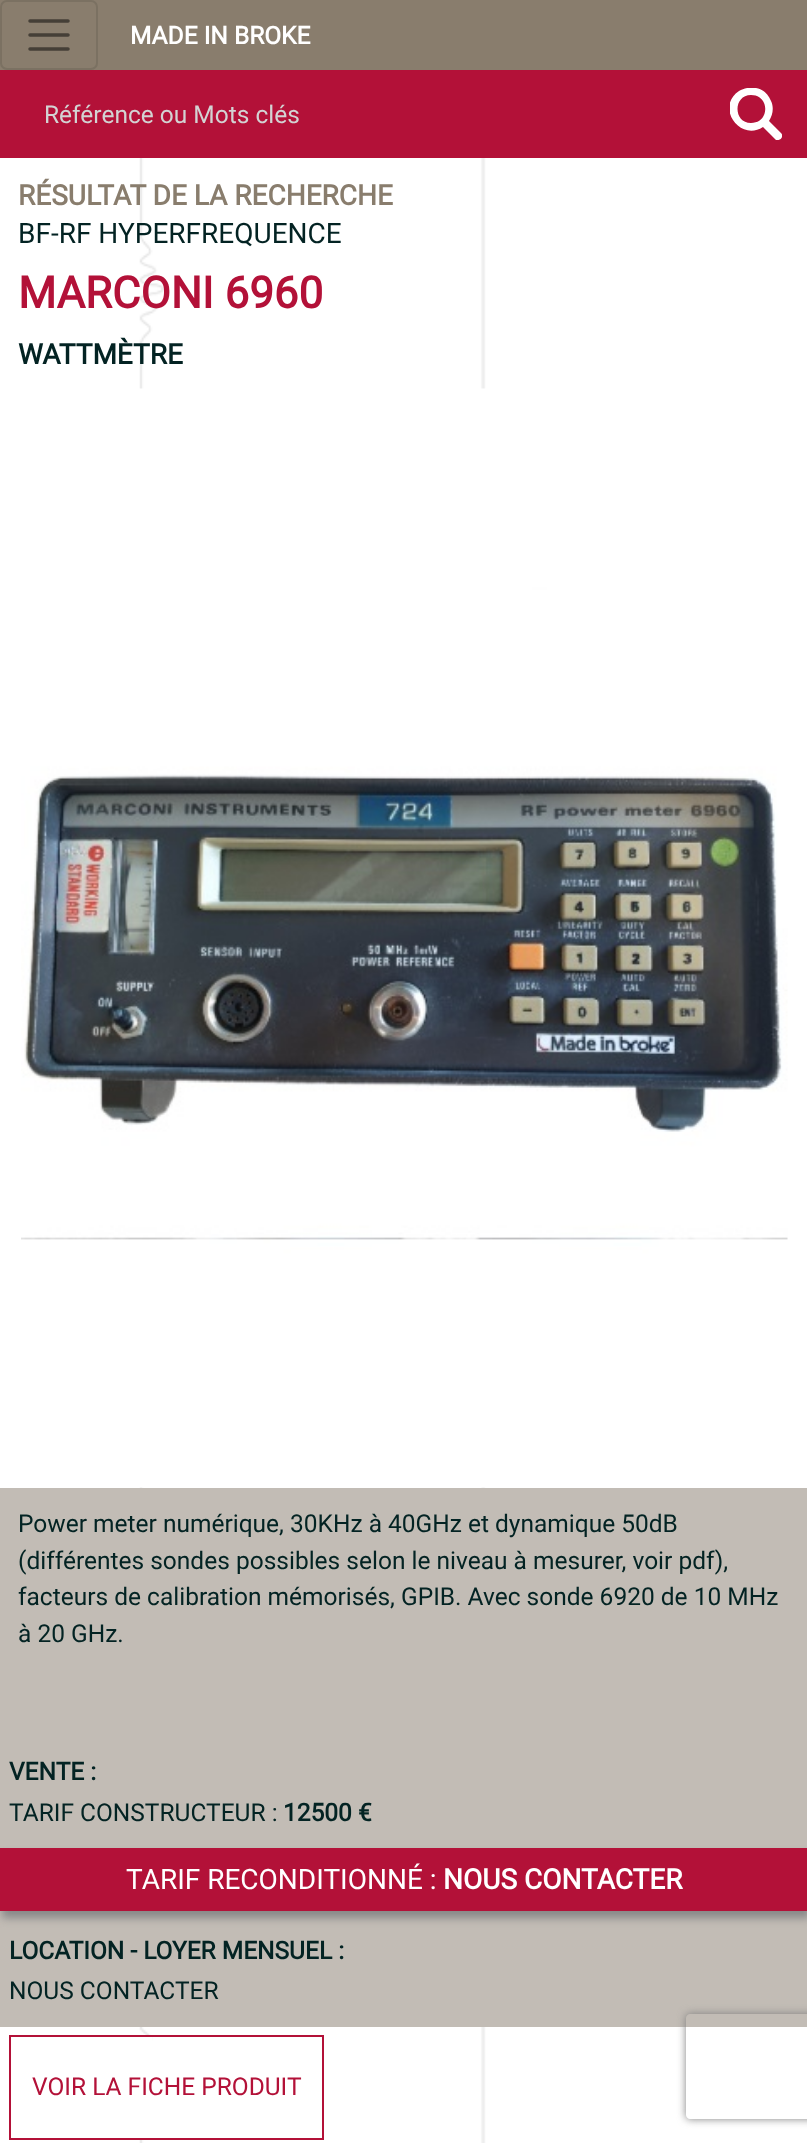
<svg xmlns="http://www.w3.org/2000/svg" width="807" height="2143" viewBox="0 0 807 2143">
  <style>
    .t1 { font: bold 24.5px Roboto; fill: #fff; }
    .t2 { font: 24.5px Roboto; fill: #d3d3d3; }
    .t3 { font: bold 28px Roboto; fill: #897d6d; }
    .t4 { font: 28px Roboto; fill: #032323; }
    .t5 { font: bold 43.75px Roboto; fill: #b31138; }
    .t6 { font: bold 28px Roboto; fill: #032323; }
    .t7 { font: 24.5px Roboto; fill: #032323; }
    .t8 { font: bold 24.5px Roboto; fill: #032323; }
    .t9 { font: 28px Roboto; fill: #fff; }
    .t10 { font: bold 28px Roboto; fill: #fff; }
    .t11 { font: 24.5px Roboto; fill: #b31138; }
  </style>
  <defs>
    <clipPath id="clip1"><rect x="730" y="88" width="52" height="52"/></clipPath>
    <clipPath id="clip2"><path d="M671 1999H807V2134H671ZM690 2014H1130C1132 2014 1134 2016 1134 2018V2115C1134 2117 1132 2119 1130 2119H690C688 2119 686 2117 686 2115V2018C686 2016 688 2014 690 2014Z" clip-rule="evenodd"/></clipPath>
  </defs>
  <rect width="100%" height="100%" fill="#fff"/>
  <image x="139" y="158" width="367" height="1985" href="images/1.png"/>
  <rect x="0" y="0" width="807" height="70" fill="#897d6d"/>
  <rect x="1" y="1" width="96" height="68" rx="6" fill="none" stroke="#7b7162" stroke-width="2"/>
  <path d="M30 21H68M30 35H68M30 49H68" fill="none" stroke="#453f37" stroke-width="3.5" stroke-linecap="round"/>
  <text x="130" y="44" class="t1">MADE IN BROKE</text>
  <rect x="0" y="70" width="807" height="88" fill="#b31138"/>
  <text x="44" y="123" class="t2">Référence ou Mots clés</text>
  <g clip-path="url(#clip1)">
    <path d="M781 133L769 121C773 115 774 107 771 101C768 94 763 89 756 88C750 87 744 88 739 91C715 107 740 142 763 127L776 140C781 141 784 136 781 133ZM751 123C733 123 733 95 751 95C770 95 770 123 751 123Z" fill="#fff"/>
  </g>
  <text x="18" y="205" class="t3">RÉSULTAT DE LA RECHERCHE</text>
  <text x="18" y="243" class="t4">BF-RF HYPERFREQUENCE</text>
  <text x="18" y="308" class="t5">MARCONI 6960</text>
  <text x="18" y="364" class="t6">WATTMÈTRE</text>
  <image x="21" y="388" width="767" height="1100" href="images/2.png"/>
  <rect x="0" y="1488" width="807" height="539" fill="#c2bcb5"/>
  <text x="18" y="1532" class="t7">Power meter numérique, 30KHz à 40GHz et dynamique 50dB</text>
  <text x="18" y="1569" class="t7">(différentes sondes possibles selon le niveau à mesurer, voir pdf),</text>
  <text x="18" y="1605" class="t7">facteurs de calibration mémorisés, GPIB. Avec sonde 6920 de 10 MHz</text>
  <text x="18" y="1642" class="t7">à 20 GHz.</text>
  <text x="9" y="1780" class="t8">VENTE :</text>
  <text x="9" y="1821" class="t7">TARIF CONSTRUCTEUR :</text>
  <text x="283" y="1821" class="t8">12500 €</text>
  <rect x="2" y="1855" width="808" height="63" fill="#888" filter="blur(4.5px)"/>
  <rect x="0" y="1848" width="807" height="63" fill="#b31138"/>
  <text x="126" y="1889" class="t9">TARIF RECONDITIONNÉ :</text>
  <text x="443" y="1889" class="t10">NOUS CONTACTER</text>
  <text x="9" y="1959" class="t8">LOCATION - LOYER MENSUEL :</text>
  <text x="9" y="1999" class="t7">NOUS CONTACTER</text>
  <rect x="139" y="2037" width="13" height="101" fill="#fff"/>
  <rect x="10" y="2036" width="313" height="103" fill="none" stroke="#b31138" stroke-width="2"/>
  <text x="32" y="2095" class="t11">VOIR LA FICHE PRODUIT</text>
  <g clip-path="url(#clip2)">
    <rect x="686" y="2014" width="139" height="105" rx="4" fill="#808080" filter="blur(4.5px)"/>
  </g>
</svg>
